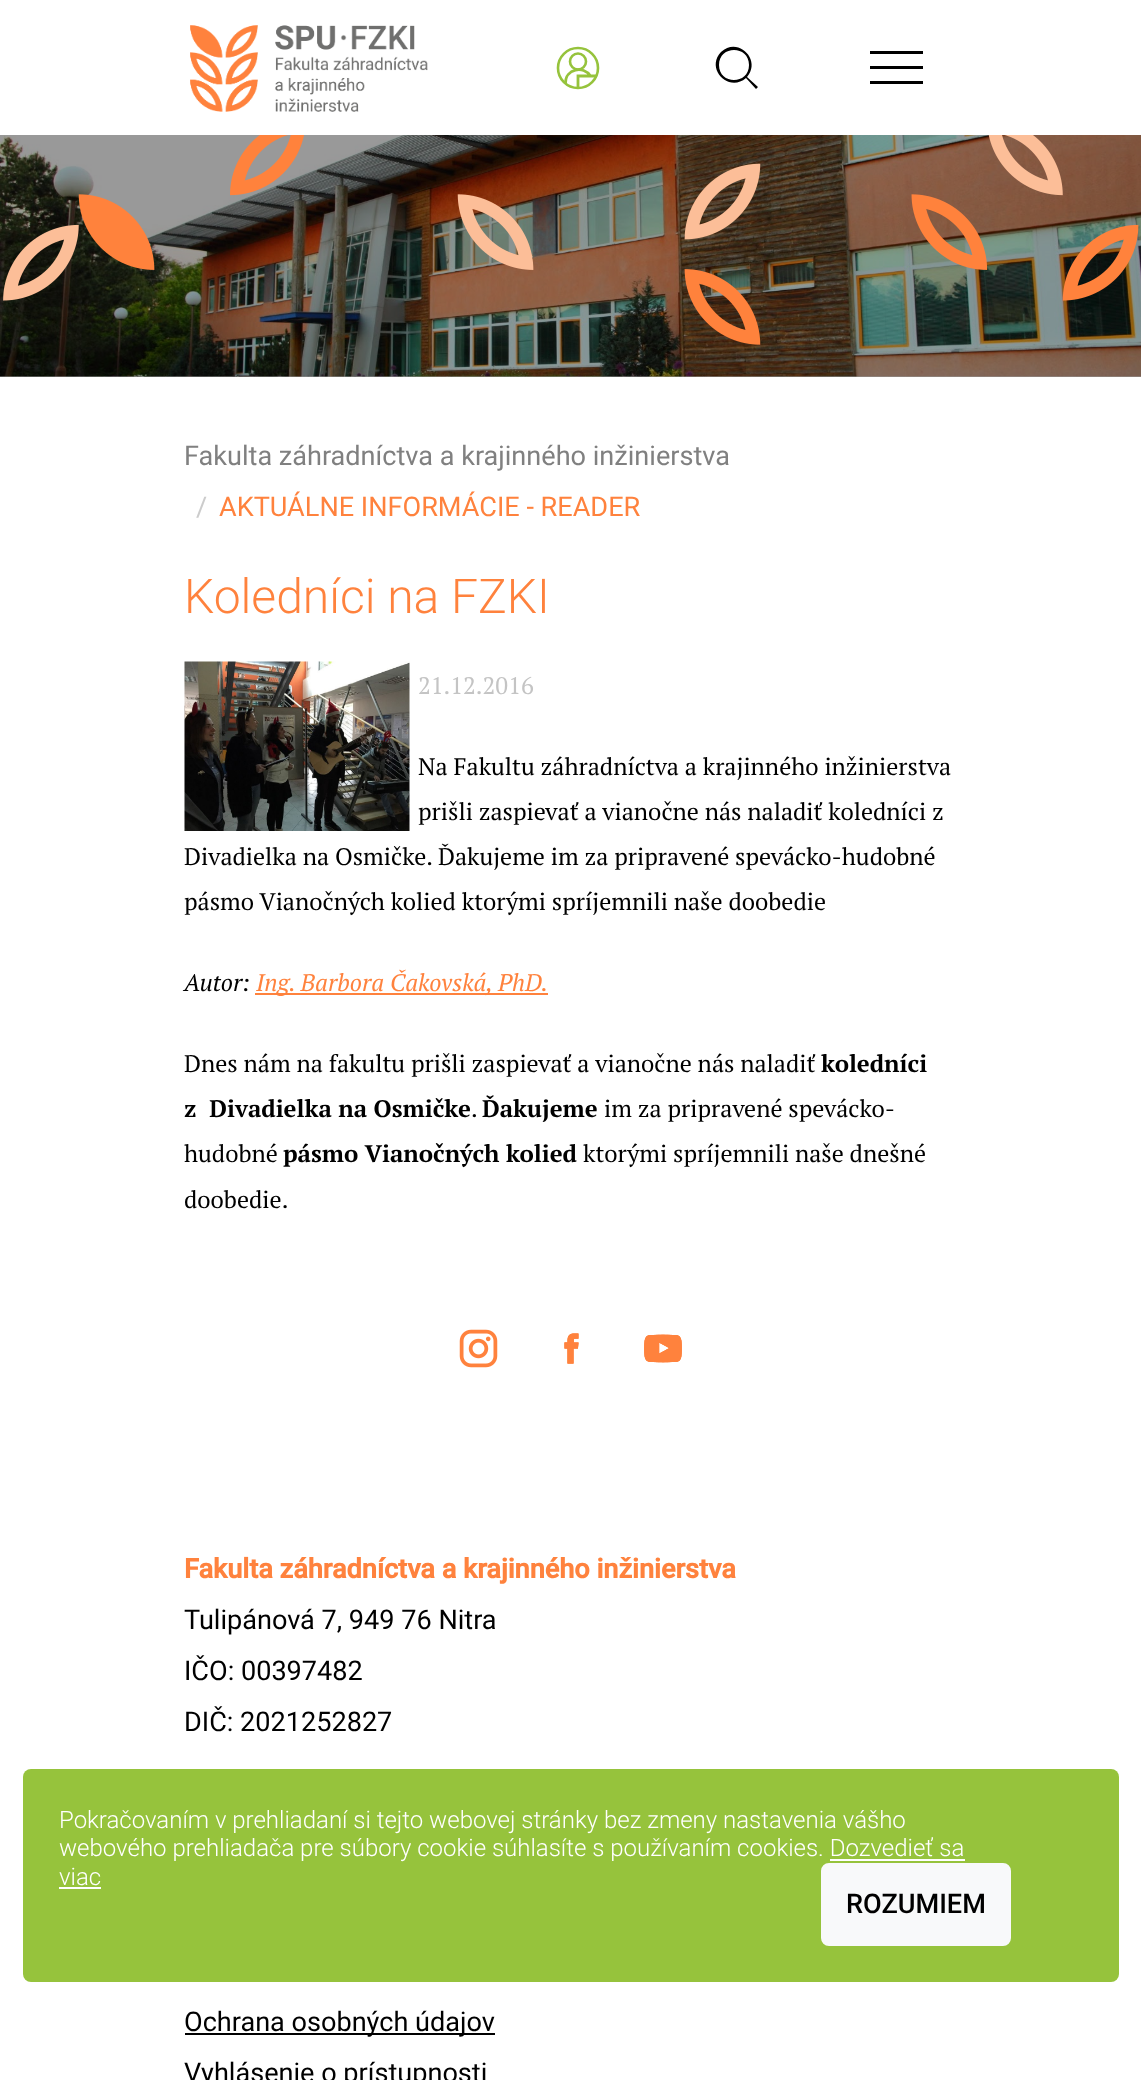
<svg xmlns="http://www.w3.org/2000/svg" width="1141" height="2080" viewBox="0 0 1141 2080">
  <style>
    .t1 { font: 27.1px Roboto; fill: #808080; }
    .t2 { font: 27.1px Roboto; fill: #ccc; }
    .t3 { font: 27.1px Roboto; fill: #ff823d; }
    .t4 { font: 300 48px Roboto; fill: #ff823d; }
    .t5 { font: 24px PT Serif; fill: #c4c4c4; }
    .t6 { font: 24px PT Serif; fill: #000; }
    .t7 { font: italic 24px PT Serif; fill: #000; }
    .t8 { font: italic 24px PT Serif; fill: #ff823d; }
    .t9 { font: bold 24px PT Serif; fill: #000; }
    .t10 { font: bold 27.1px Roboto; fill: #ff823d; }
    .t11 { font: 27.1px Roboto; fill: #000; }
    .t12 { font: 300 24px Roboto; fill: #fff; }
    .t13 { font: 500 27.1px Roboto; fill: #000; }
  </style>
  <rect width="100%" height="100%" fill="#fff"/>
  <rect x="0" y="376" width="1141" height="1" fill="#999"/>
  <image x="190" y="25" width="238" height="87" href="images/1.png"/>
  <circle cx="578" cy="68" r="20" fill="none" stroke="#96c33c" stroke-width="2.6"/>
  <circle cx="578" cy="61.5" r="8" fill="none" stroke="#96c33c" stroke-width="2.6"/>
  <path d="M565.5 83C565.5 69 583.5 65 590.5 76M578 88V76H597" fill="none" stroke="#96c33c" stroke-width="2.8"/>
  <path d="M758 87L747 77C762 60 738 36 721 52C705 69 729 93 746 78L756 89ZM719 65C719 45 749 45 749 65C749 85 719 85 719 65Z" fill="#000"/>
  <rect x="870" y="51" width="53" height="3" fill="#000"/>
  <rect x="870" y="66" width="53" height="3" fill="#000"/>
  <rect x="870" y="81" width="53" height="3" fill="#000"/>
  <image x="0" y="135" width="1141" height="242" href="images/2.png"/>
  <image x="3" y="135" width="1136" height="210" href="images/3.png"/>
  <text x="184" y="465" class="t1">Fakulta záhradníctva a krajinného inžinierstva</text>
  <text x="196" y="516" class="t2">/</text>
  <text x="219" y="516" class="t3">AKTUÁLNE INFORMÁCIE - READER</text>
  <text x="184" y="613" class="t4">Koledníci na FZKI</text>
  <image x="184" y="661" width="226" height="170" href="images/4.png"/>
  <text x="418" y="694" class="t5">21.12.2016</text>
  <text x="418" y="775" class="t6">Na Fakultu záhradníctva a krajinného inžinierstva</text>
  <text x="418" y="820" class="t6">prišli zaspievať a vianočne nás naladiť koledníci z</text>
  <text x="184" y="865" class="t6">Divadielka na Osmičke. Ďakujeme im za pripravené spevácko-hudobné</text>
  <text x="184" y="910" class="t6">pásmo Vianočných kolied ktorými spríjemnili naše doobedie</text>
  <text x="184" y="991" class="t7">Autor:</text>
  <rect x="255" y="993" width="293" height="2" fill="#ff823d"/>
  <text x="256" y="991" class="t8">Ing. Barbora Čakovská, PhD.</text>
  <text x="184" y="1072" class="t6">Dnes nám na fakultu prišli zaspievať a vianočne nás naladiť</text>
  <text x="821" y="1072" class="t9">koledníci</text>
  <text x="184" y="1117" class="t9" xml:space="preserve">z  Divadielka na Osmičke</text>
  <text x="471" y="1117" class="t6">.</text>
  <text x="482" y="1117" class="t9">Ďakujeme</text>
  <text x="604" y="1117" class="t6">im za pripravené spevácko-</text>
  <text x="184" y="1162" class="t6">hudobné</text>
  <text x="283" y="1162" class="t9">pásmo Vianočných kolied</text>
  <text x="583" y="1162" class="t6">ktorými spríjemnili naše dnešné</text>
  <text x="184" y="1208" class="t6">doobedie.</text>
  <image x="459" y="1329" width="39" height="39" href="images/5.png"/>
  <image x="564" y="1333" width="15" height="31" href="images/6.png"/>
  <image x="644" y="1334" width="38" height="29" href="images/7.png"/>
  <text x="184" y="1578" class="t10">Fakulta záhradníctva a krajinného inžinierstva</text>
  <text x="184" y="1629" class="t11">Tulipánová 7, 949 76 Nitra</text>
  <text x="184" y="1680" class="t11">IČO: 00397482</text>
  <text x="184" y="1731" class="t11">DIČ: 2021252827</text>
  <rect x="185" y="2033" width="310" height="2" fill="#000"/>
  <text x="184" y="2031" class="t11">Ochrana osobných údajov</text>
  <text x="184" y="2082" class="t11">Vyhlásenie o prístupnosti</text>
  <rect x="23" y="1769" width="1096" height="213" rx="8" fill="#96c33c"/>
  <text x="59" y="1828" class="t12">Pokračovaním v prehliadaní si tejto webovej stránky bez zmeny nastavenia vášho</text>
  <text x="59" y="1856" class="t12">webového prehliadača pre súbory cookie súhlasíte s používaním cookies. Dozvedieť sa</text>
  <text x="59" y="1885" class="t12">viac</text>
  <rect x="830" y="1859" width="135" height="2" fill="#fff"/>
  <rect x="59" y="1887" width="42" height="2" fill="#fff"/>
  <rect x="822" y="1864" width="188" height="81" rx="7" fill="#f8f9fa" stroke="#f8f9fa" stroke-width="2"/>
  <text x="846" y="1913" class="t13">ROZUMIEM</text>
</svg>
